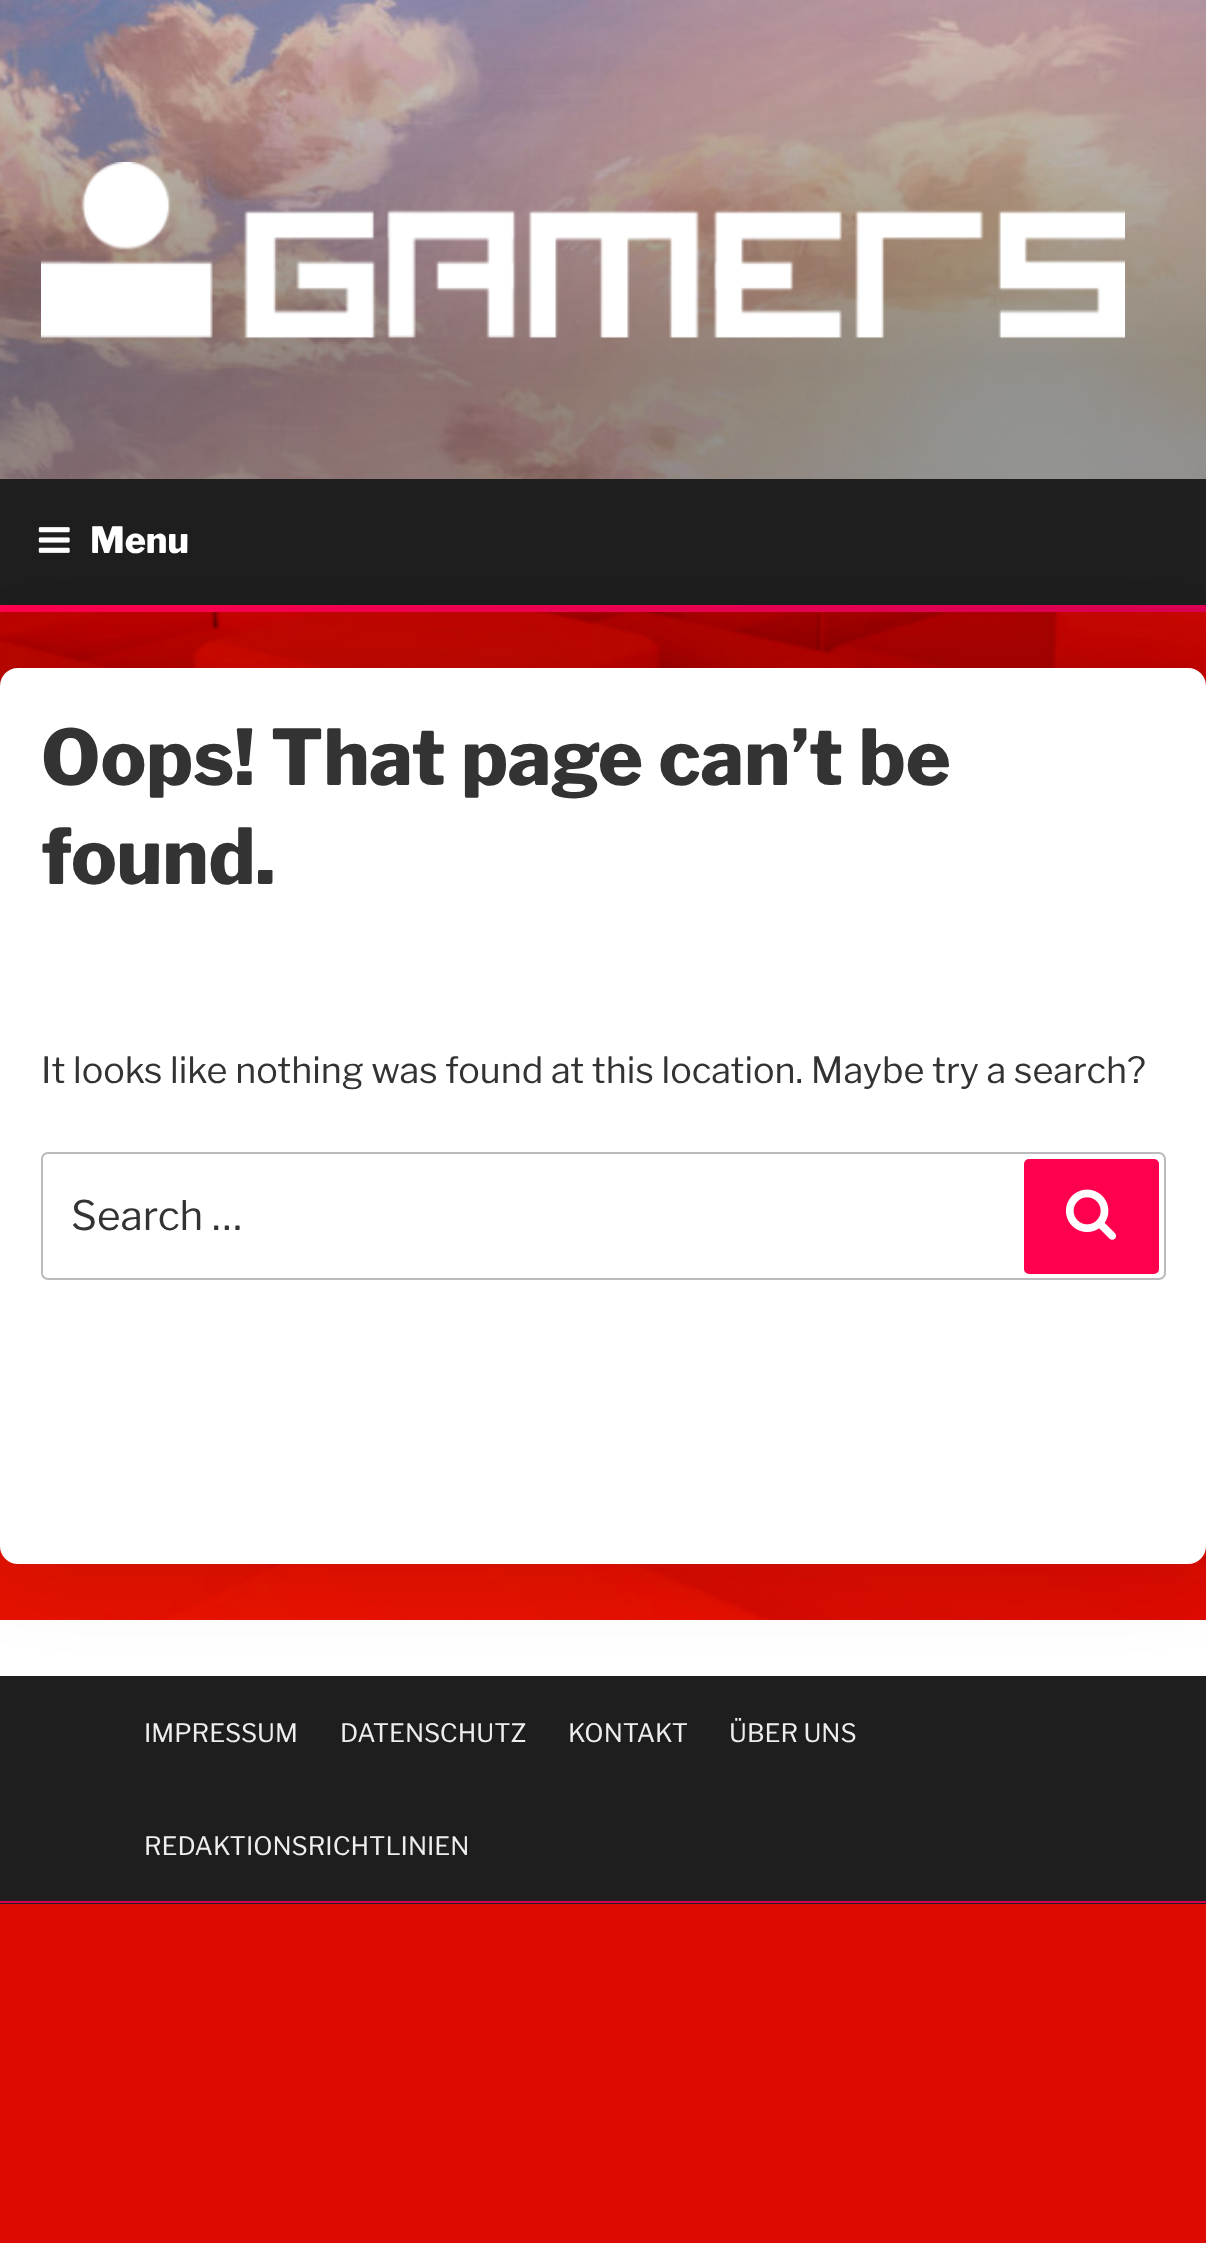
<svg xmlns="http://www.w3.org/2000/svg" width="1206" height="2243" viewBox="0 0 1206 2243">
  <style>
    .t1 { font: 800 36px Libre Franklin; fill: #fff; }
    .t2 { font: 800 76.5px Libre Franklin; fill: #333; }
    .t3 { font: 36px Libre Franklin; fill: #333; }
    .t4 { font: 40.5px Libre Franklin; fill: #333; }
    .t5 { font: 25.25px Libre Franklin; fill: #eee; }
  </style>
  <defs>
    <linearGradient id="g1" gradientUnits="userSpaceOnUse" x1="0" y1="609" x2="1206" y2="609"><stop offset="0" stop-color="#ff004e"/><stop offset="1" stop-color="#dc0055"/></linearGradient>
  </defs>
  <rect width="100%" height="100%" fill="#dd0a01"/>
  <image x="0" y="0" width="1206" height="479" href="images/1.png"/>
  <image x="41" y="162" width="1084" height="176" href="images/2.png"/>
  <rect x="0" y="479" width="1206" height="126" fill="#1e1e1e"/>
  <image x="38" y="527" width="32" height="26" href="images/3.png"/>
  <text x="90" y="553" class="t1">Menu</text>
  <rect x="0" y="605" width="1206" height="7" fill="url(#g1)"/>
  <rect x="0" y="1620" width="1206" height="56" fill="#fff"/>
  <image x="0" y="612" width="1206" height="1008" href="images/4.png"/>
  <rect x="0" y="668" width="1206" height="896" rx="18" fill="#00000021" filter="blur(45px)"/>
  <rect x="0" y="668" width="1206" height="896" rx="18" fill="#fff"/>
  <text x="41" y="785" class="t2">Oops! That page can’t be</text>
  <text x="41" y="884" class="t2">found.</text>
  <text x="41" y="1083" class="t3">It looks like nothing was found at this location. Maybe try a search?</text>
  <rect x="42" y="1153" width="1123" height="126" rx="6" fill="none" stroke="#bbb" stroke-width="2"/>
  <text x="71" y="1230" class="t4">Search …</text>
  <rect x="1024" y="1159" width="135" height="115" rx="5" fill="#ff004e"/>
  <image x="1065" y="1189" width="52" height="51" href="images/5.png"/>
  <rect x="0" y="1676" width="1206" height="228" fill="#1e1e1e"/>
  <rect x="0" y="1901" width="1206" height="2" fill="#dc0055"/>
  <text x="144" y="1742" class="t5">IMPRESSUM</text>
  <text x="340" y="1742" class="t5">DATENSCHUTZ</text>
  <text x="568" y="1742" class="t5">KONTAKT</text>
  <text x="729" y="1742" class="t5">ÜBER UNS</text>
  <text x="144" y="1855" class="t5">REDAKTIONSRICHTLINIEN</text>
</svg>
